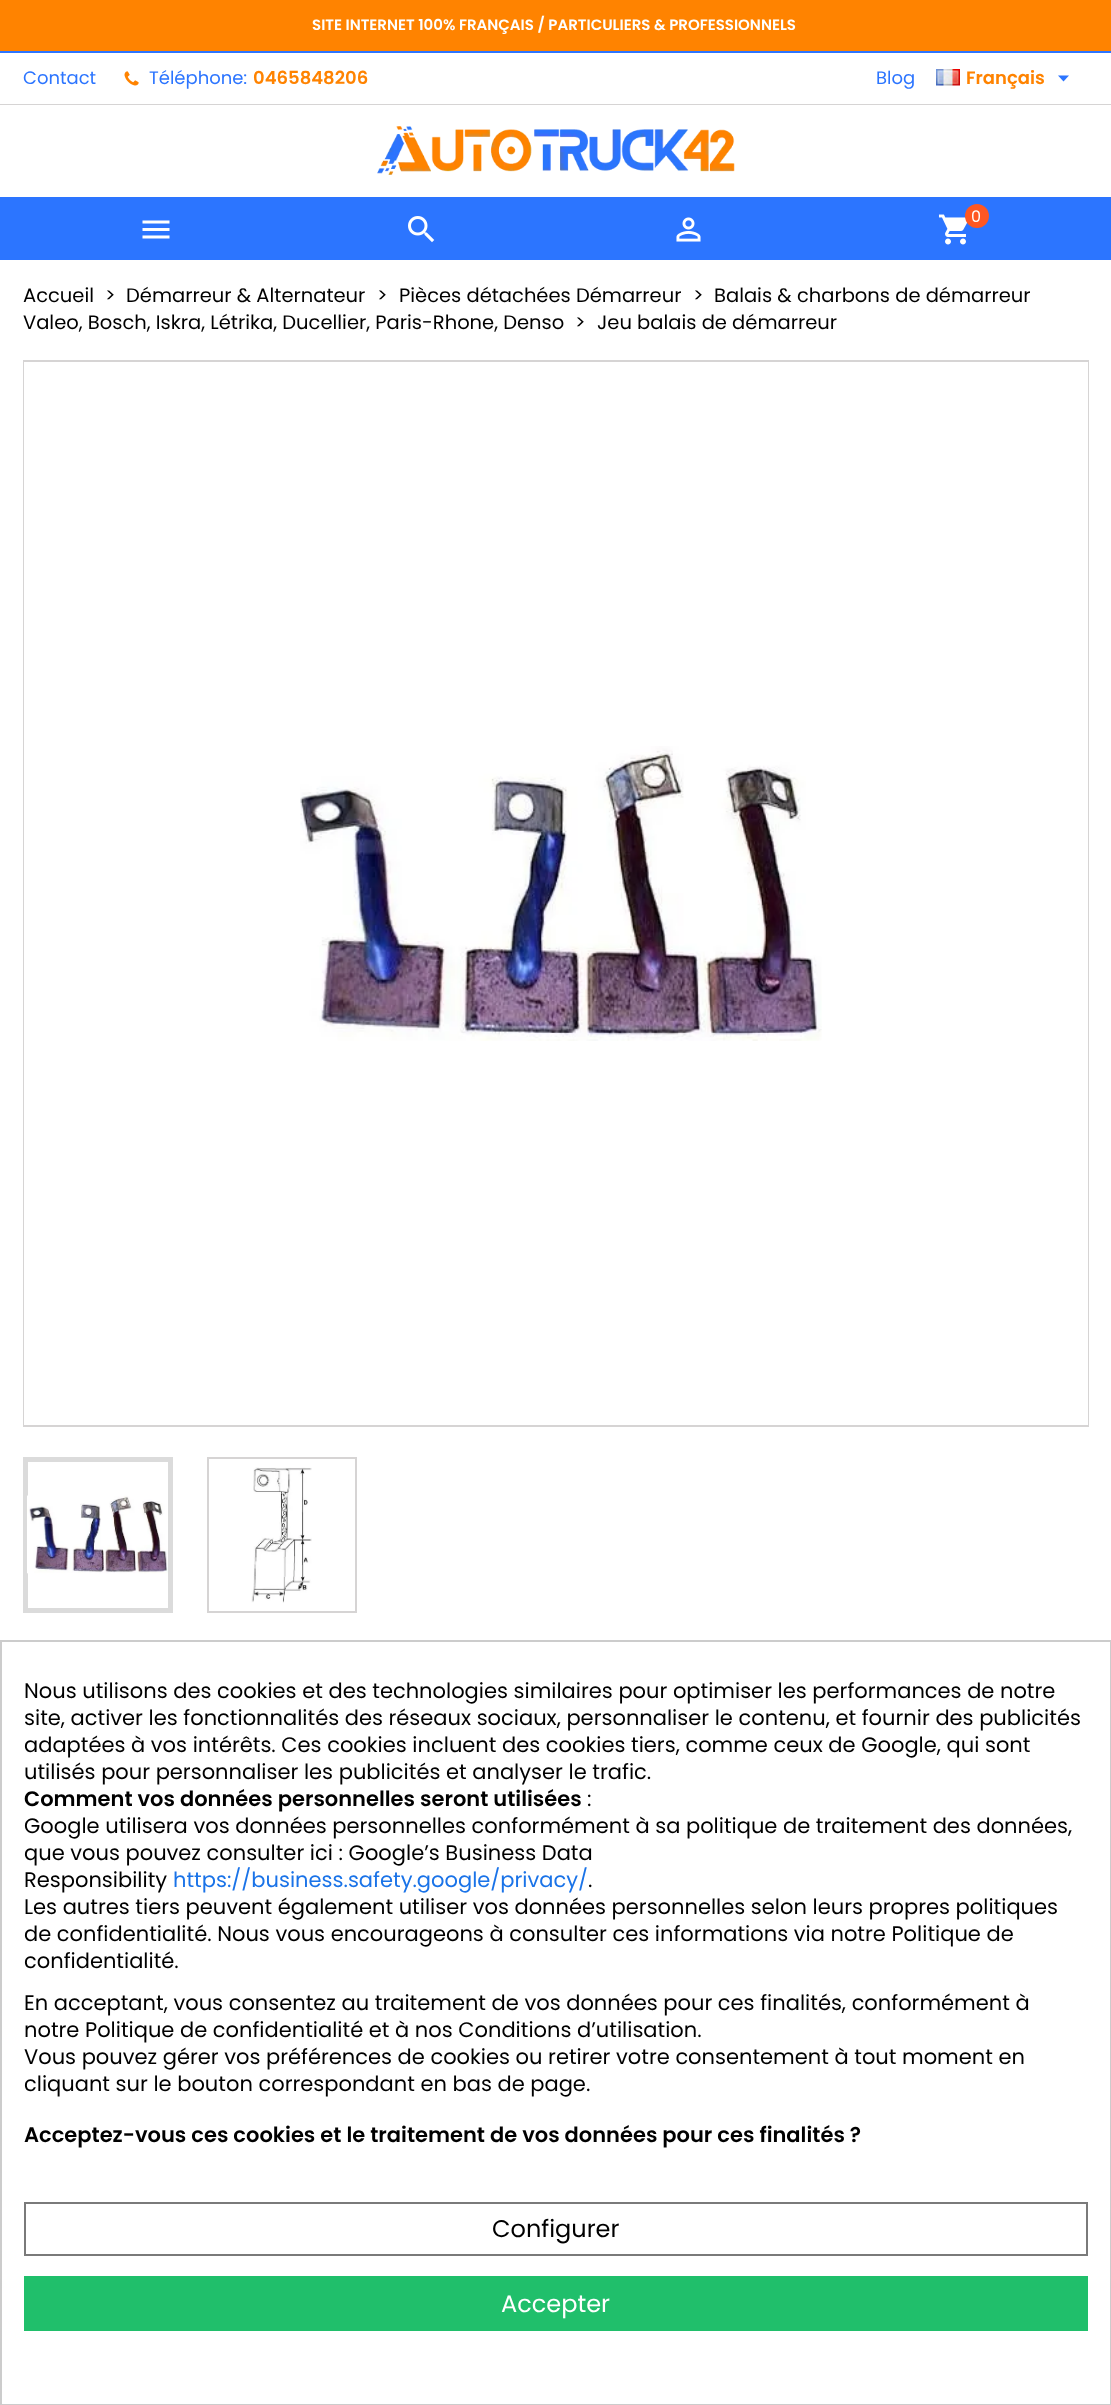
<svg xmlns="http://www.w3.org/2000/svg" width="1111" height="2405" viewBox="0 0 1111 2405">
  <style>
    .t1 { font: 600 15px Poppins; fill: #fff; }
    .t2 { font: 18px Poppins; fill: #2c75ff; }
    .t3 { font: 600 18px Poppins; fill: #ff8300; }
    .t4 { font: 16px Poppins; fill: #fff; }
    .t5 { font: 19.5px Poppins; fill: #000; }
    .t6 { font: 21px Poppins; fill: #000; }
    .t7 { font: 600 21px Poppins; fill: #000; }
    .t8 { font: 21px Poppins; fill: #1a73e8; }
    .t9 { font: 24px Poppins; fill: #000; }
    .t10 { font: 24px Poppins; fill: #fff; }
  </style>
  <rect width="100%" height="100%" fill="#ff8300"/>
  <rect x="0" y="51" width="1111" height="2" fill="#2c75ff"/>
  <text x="312" y="30" class="t1">SITE INTERNET 100% FRANÇAIS / PARTICULIERS &amp; PROFESSIONNELS</text>
  <rect x="0" y="53" width="1111" height="1587" fill="#fff"/>
  <rect x="0" y="104" width="1111" height="1" fill="#d6d4d4"/>
  <text x="23" y="84" class="t2">Contact</text>
  <image x="124" y="71" width="15" height="15" href="images/1.png"/>
  <text x="149" y="84" class="t2">Téléphone:</text>
  <text x="253" y="84" class="t3">0465848206</text>
  <text x="876" y="84" class="t2">Blog</text>
  <image x="936" y="69" width="24" height="17" href="images/2.png"/>
  <text x="966" y="84" class="t3">Français</text>
  <path d="M1058 75.5H1069L1063.5 81.5Z" fill="#2c75ff"/>
  <image x="377" y="126" width="358" height="49" href="images/3.png"/>
  <rect x="0" y="197" width="1111" height="63" fill="#2c75ff"/>
  <image x="142" y="220" width="28" height="19" href="images/4.png"/>
  <image x="408" y="216" width="27" height="27" href="images/5.png"/>
  <image x="676" y="217" width="25" height="25" href="images/6.png"/>
  <image x="938" y="214" width="30" height="31" href="images/7.png"/>
  <circle cx="977" cy="216" r="12" fill="#ff5722"/>
  <text x="971" y="222" class="t4">0</text>
  <text x="23" y="302" class="t5">Accueil</text>
  <text x="105" y="302" class="t5">&gt;</text>
  <text x="126" y="302" class="t5">Démarreur &amp; Alternateur</text>
  <text x="377" y="302" class="t5">&gt;</text>
  <text x="399" y="302" class="t5">Pièces détachées Démarreur</text>
  <text x="693" y="302" class="t5">&gt;</text>
  <text x="714" y="302" class="t5">Balais &amp; charbons de démarreur</text>
  <text x="23" y="329" class="t5">Valeo, Bosch, Iskra, Létrika, Ducellier, Paris-Rhone, Denso</text>
  <text x="575" y="329" class="t5">&gt;</text>
  <text x="597" y="329" class="t5">Jeu balais de démarreur</text>
  <rect x="24" y="361" width="1064" height="1065" fill="none" stroke="#d6d4d4" stroke-width="2"/>
  <rect x="24" y="362" width="1064" height="1063" fill="#fff"/>
  <image x="300" y="746" width="522" height="295" href="images/8.png"/>
  <rect x="25.5" y="1459.5" width="145" height="151" fill="none" stroke="#dbdbdb" stroke-width="5"/>
  <rect x="208" y="1458" width="148" height="154" fill="none" stroke="#d6d4d4" stroke-width="2"/>
  <image x="27" y="1495" width="141" height="79" href="images/9.png"/>
  <image x="251" y="1467" width="61" height="136" href="images/10.png"/>
  <rect x="1" y="1641" width="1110" height="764" fill="#fff" stroke="#ccc" stroke-width="2"/>
  <text x="24" y="1698" class="t6">Nous utilisons des cookies et des technologies similaires pour optimiser les performances de notre</text>
  <text x="24" y="1725" class="t6">site, activer les fonctionnalités des réseaux sociaux, personnaliser le contenu, et fournir des publicités</text>
  <text x="24" y="1752" class="t6">adaptées à vos intérêts. Ces cookies incluent des cookies tiers, comme ceux de Google, qui sont</text>
  <text x="24" y="1779" class="t6">utilisés pour personnaliser les publicités et analyser le trafic.</text>
  <text x="24" y="1806" class="t7">Comment vos données personnelles seront utilisées</text>
  <text x="587" y="1806" class="t6">:</text>
  <text x="24" y="1833" class="t6">Google utilisera vos données personnelles conformément à sa politique de traitement des données,</text>
  <text x="24" y="1860" class="t6">que vous pouvez consulter ici : Google’s Business Data</text>
  <text x="24" y="1887" class="t6">Responsibility</text>
  <text x="173" y="1887" class="t8">https://business.safety.google/privacy/</text>
  <text x="588" y="1887" class="t6">.</text>
  <text x="24" y="1914" class="t6">Les autres tiers peuvent également utiliser vos données personnelles selon leurs propres politiques</text>
  <text x="24" y="1941" class="t6">de confidentialité. Nous vous encourageons à consulter ces informations via notre Politique de</text>
  <text x="24" y="1968" class="t6">confidentialité.</text>
  <text x="24" y="2010" class="t6">En acceptant, vous consentez au traitement de vos données pour ces finalités, conformément à</text>
  <text x="24" y="2037" class="t6">notre Politique de confidentialité et à nos Conditions d’utilisation.</text>
  <text x="24" y="2064" class="t6">Vous pouvez gérer vos préférences de cookies ou retirer votre consentement à tout moment en</text>
  <text x="24" y="2091" class="t6">cliquant sur le bouton correspondant en bas de page.</text>
  <text x="24" y="2142" class="t7">Acceptez-vous ces cookies et le traitement de vos données pour ces finalités ?</text>
  <rect x="25" y="2203" width="1062" height="52" fill="none" stroke="#7a7a7a" stroke-width="2"/>
  <text x="492" y="2237" class="t9">Configurer</text>
  <rect x="24" y="2276" width="1064" height="55" fill="#20bf6b"/>
  <text x="501" y="2312" class="t10">Accepter</text>
</svg>
